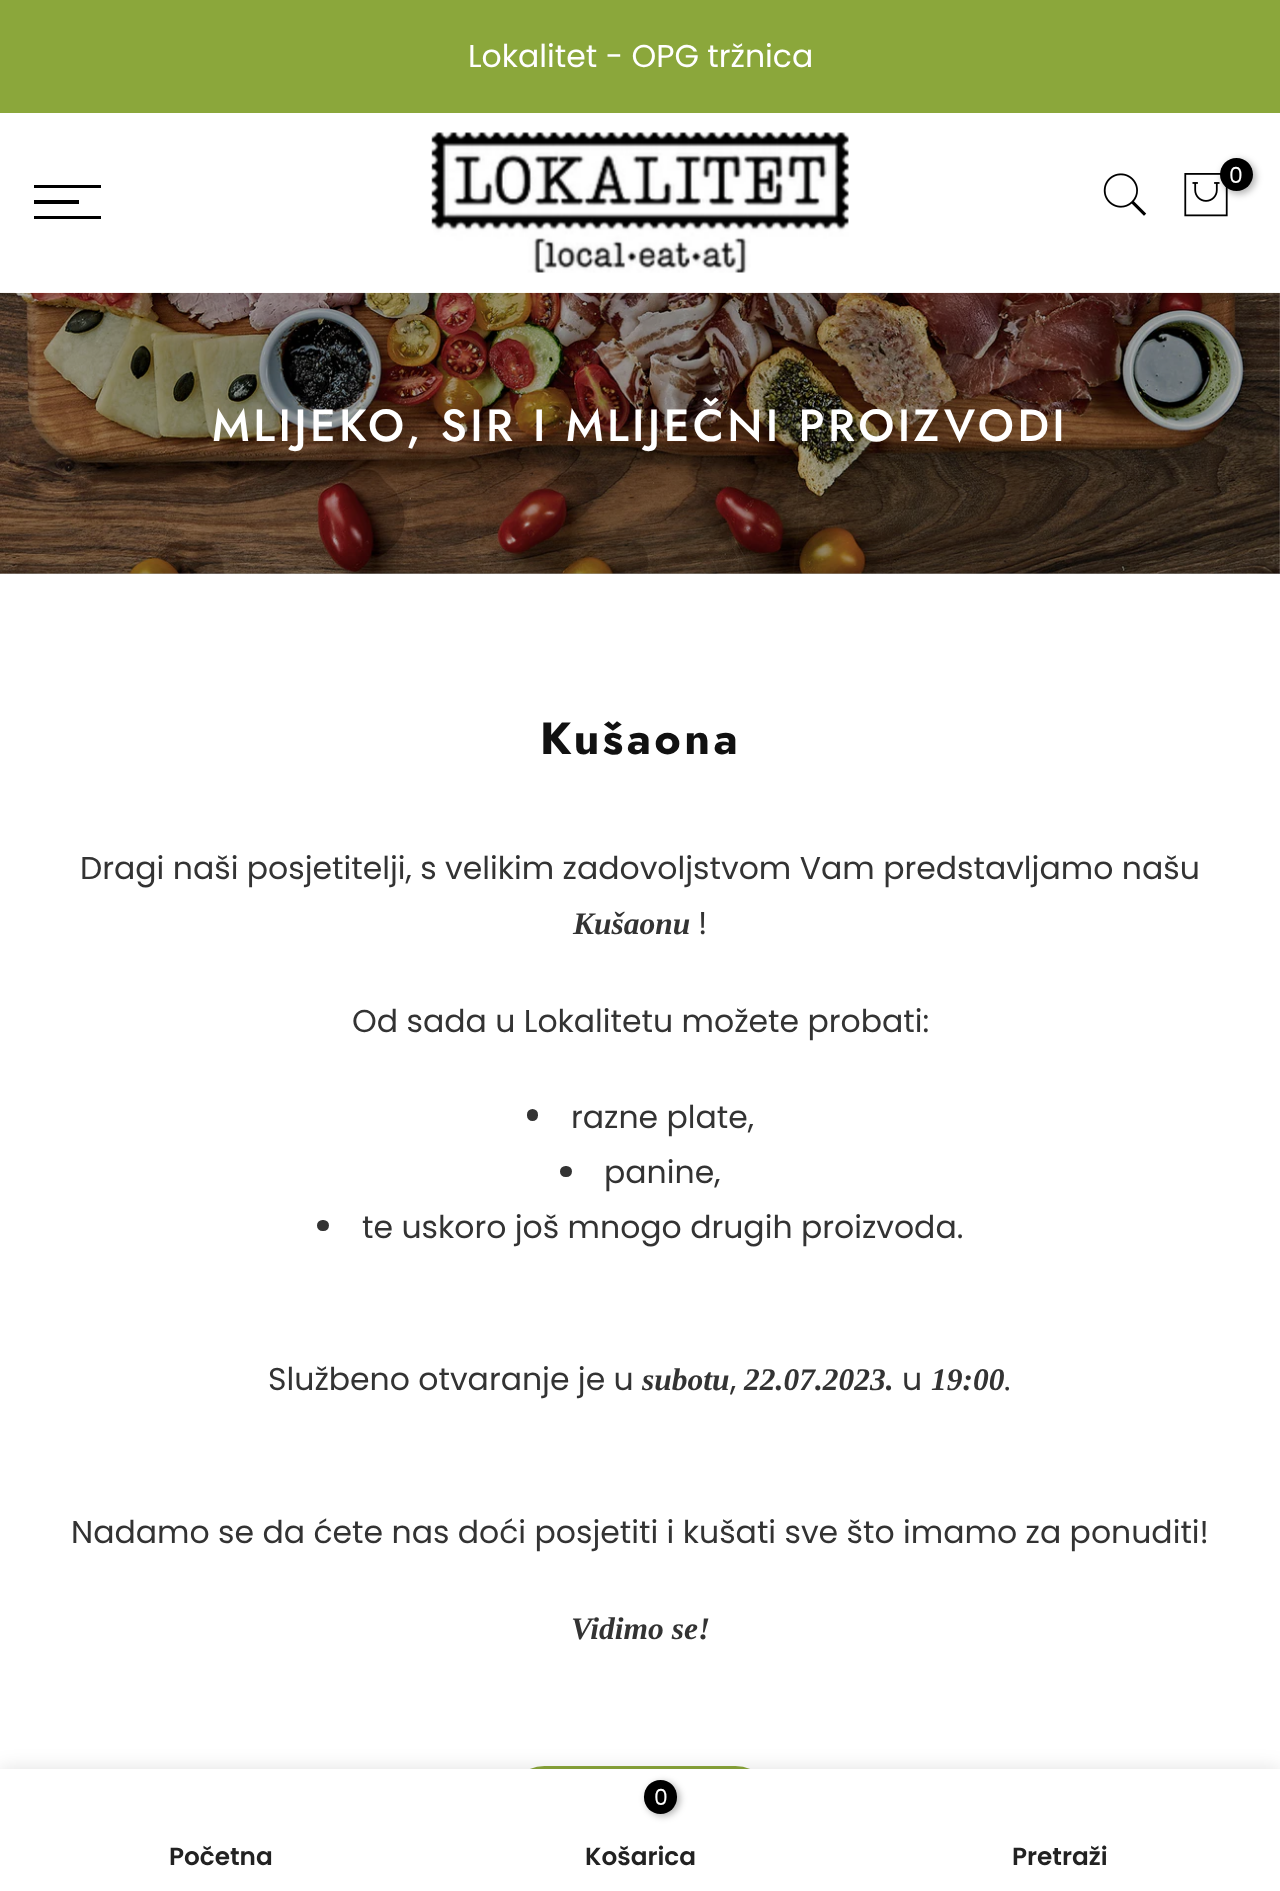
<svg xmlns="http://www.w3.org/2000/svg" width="1280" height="1891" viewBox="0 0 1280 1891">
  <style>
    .t1 { font: 31.5px Poppins; fill: #fff; }
    .t2 { font: 22px Poppins; fill: #fff; }
    .t3 { font: 500 45px Jost; letter-spacing: 3.4px; fill: #fff; }
    .t4 { font: bold 45px Jost; letter-spacing: 3.4px; fill: #111; }
    .t5 { font: 31.5px Poppins; fill: #333; }
    .t6 { font: italic bold 31.5px Liberation Serif; fill: #333; }
    .t7 { font: italic 31.5px Liberation Serif; fill: #333; }
    .t8 { font: 600 24.75px Poppins; fill: #222; }
  </style>
  <rect width="100%" height="100%" fill="#fff"/>
  <rect x="0" y="293" width="1280" height="281" fill="#ababab"/>
  <rect x="0" y="0" width="1280" height="113" fill="#8ba73b"/>
  <text x="468" y="67" class="t1">Lokalitet - OPG tržnica</text>
  <image x="0" y="292" width="1280" height="282" href="images/4.png"/>
  <rect x="0" y="292" width="1280" height="1" fill="#ffffffbf"/>
  <rect x="34" y="185" width="67" height="3" fill="#000"/>
  <rect x="34" y="200" width="45" height="4" fill="#000"/>
  <rect x="34" y="216" width="67" height="3" fill="#000"/>
  <image x="431" y="132" width="418" height="141" href="images/1.png"/>
  <image x="1103" y="173" width="44" height="43" href="images/2.png"/>
  <image x="1184" y="173" width="44" height="44" href="images/3.png"/>
  <rect x="1222" y="160" width="34" height="34" rx="17" fill="#0000004d" filter="blur(3.5px)"/>
  <circle cx="1236.5" cy="174.5" r="16.5" fill="#000"/>
  <text x="1229" y="183" class="t2">0</text>
  <text x="212" y="441" class="t3">MLIJEKO, SIR I MLIJEČNI PROIZVODI</text>
  <text x="540" y="754" class="t4">Kušaona</text>
  <text x="80" y="879" class="t5">Dragi naši posjetitelji, s velikim zadovoljstvom Vam predstavljamo našu</text>
  <text x="573" y="934" class="t6">Kušaonu</text>
  <text x="698" y="934" class="t5">!</text>
  <text x="352" y="1032" class="t5">Od sada u Lokalitetu možete probati:</text>
  <rect x="527" y="1109" width="11" height="12" rx="5.5" fill="#333"/>
  <text x="571" y="1128" class="t5">razne plate,</text>
  <rect x="560" y="1166" width="12" height="11" rx="5.5" fill="#333"/>
  <text x="604" y="1183" class="t5">panine,</text>
  <rect x="317" y="1220" width="12" height="11" rx="5.5" fill="#333"/>
  <text x="362" y="1238" class="t5">te uskoro još mnogo drugih proizvoda.</text>
  <text x="268" y="1390" class="t5">Službeno otvaranje je u</text>
  <text x="642" y="1390" class="t6">subotu</text>
  <text x="730" y="1390" class="t5">,</text>
  <text x="744" y="1390" class="t6">22.07.2023.</text>
  <text x="902" y="1390" class="t5">u</text>
  <text x="931" y="1390" class="t6">19:00</text>
  <text x="1004" y="1390" class="t7">.</text>
  <text x="71" y="1543" class="t5">Nadamo se da ćete nas doći posjetiti i kušati sve što imamo za ponuditi!</text>
  <text x="571" y="1639" class="t6">Vidimo se!</text>
  <rect x="506" y="1766" width="268" height="77" rx="38.5" fill="#8ba73b"/>
  <rect x="0" y="1769" width="1280" height="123" fill="#0000001f" filter="blur(10px)"/>
  <rect x="0" y="1769" width="1280" height="122" fill="#fff"/>
  <text x="169" y="1865" class="t8">Početna</text>
  <rect x="646" y="1782" width="34" height="34" rx="17" fill="#0000004d" filter="blur(3.5px)"/>
  <rect x="644" y="1780" width="33" height="34" rx="16.5" fill="#000"/>
  <text x="654" y="1805" class="t2">0</text>
  <text x="585" y="1865" class="t8">Košarica</text>
  <text x="1012" y="1865" class="t8">Pretraži</text>
</svg>
